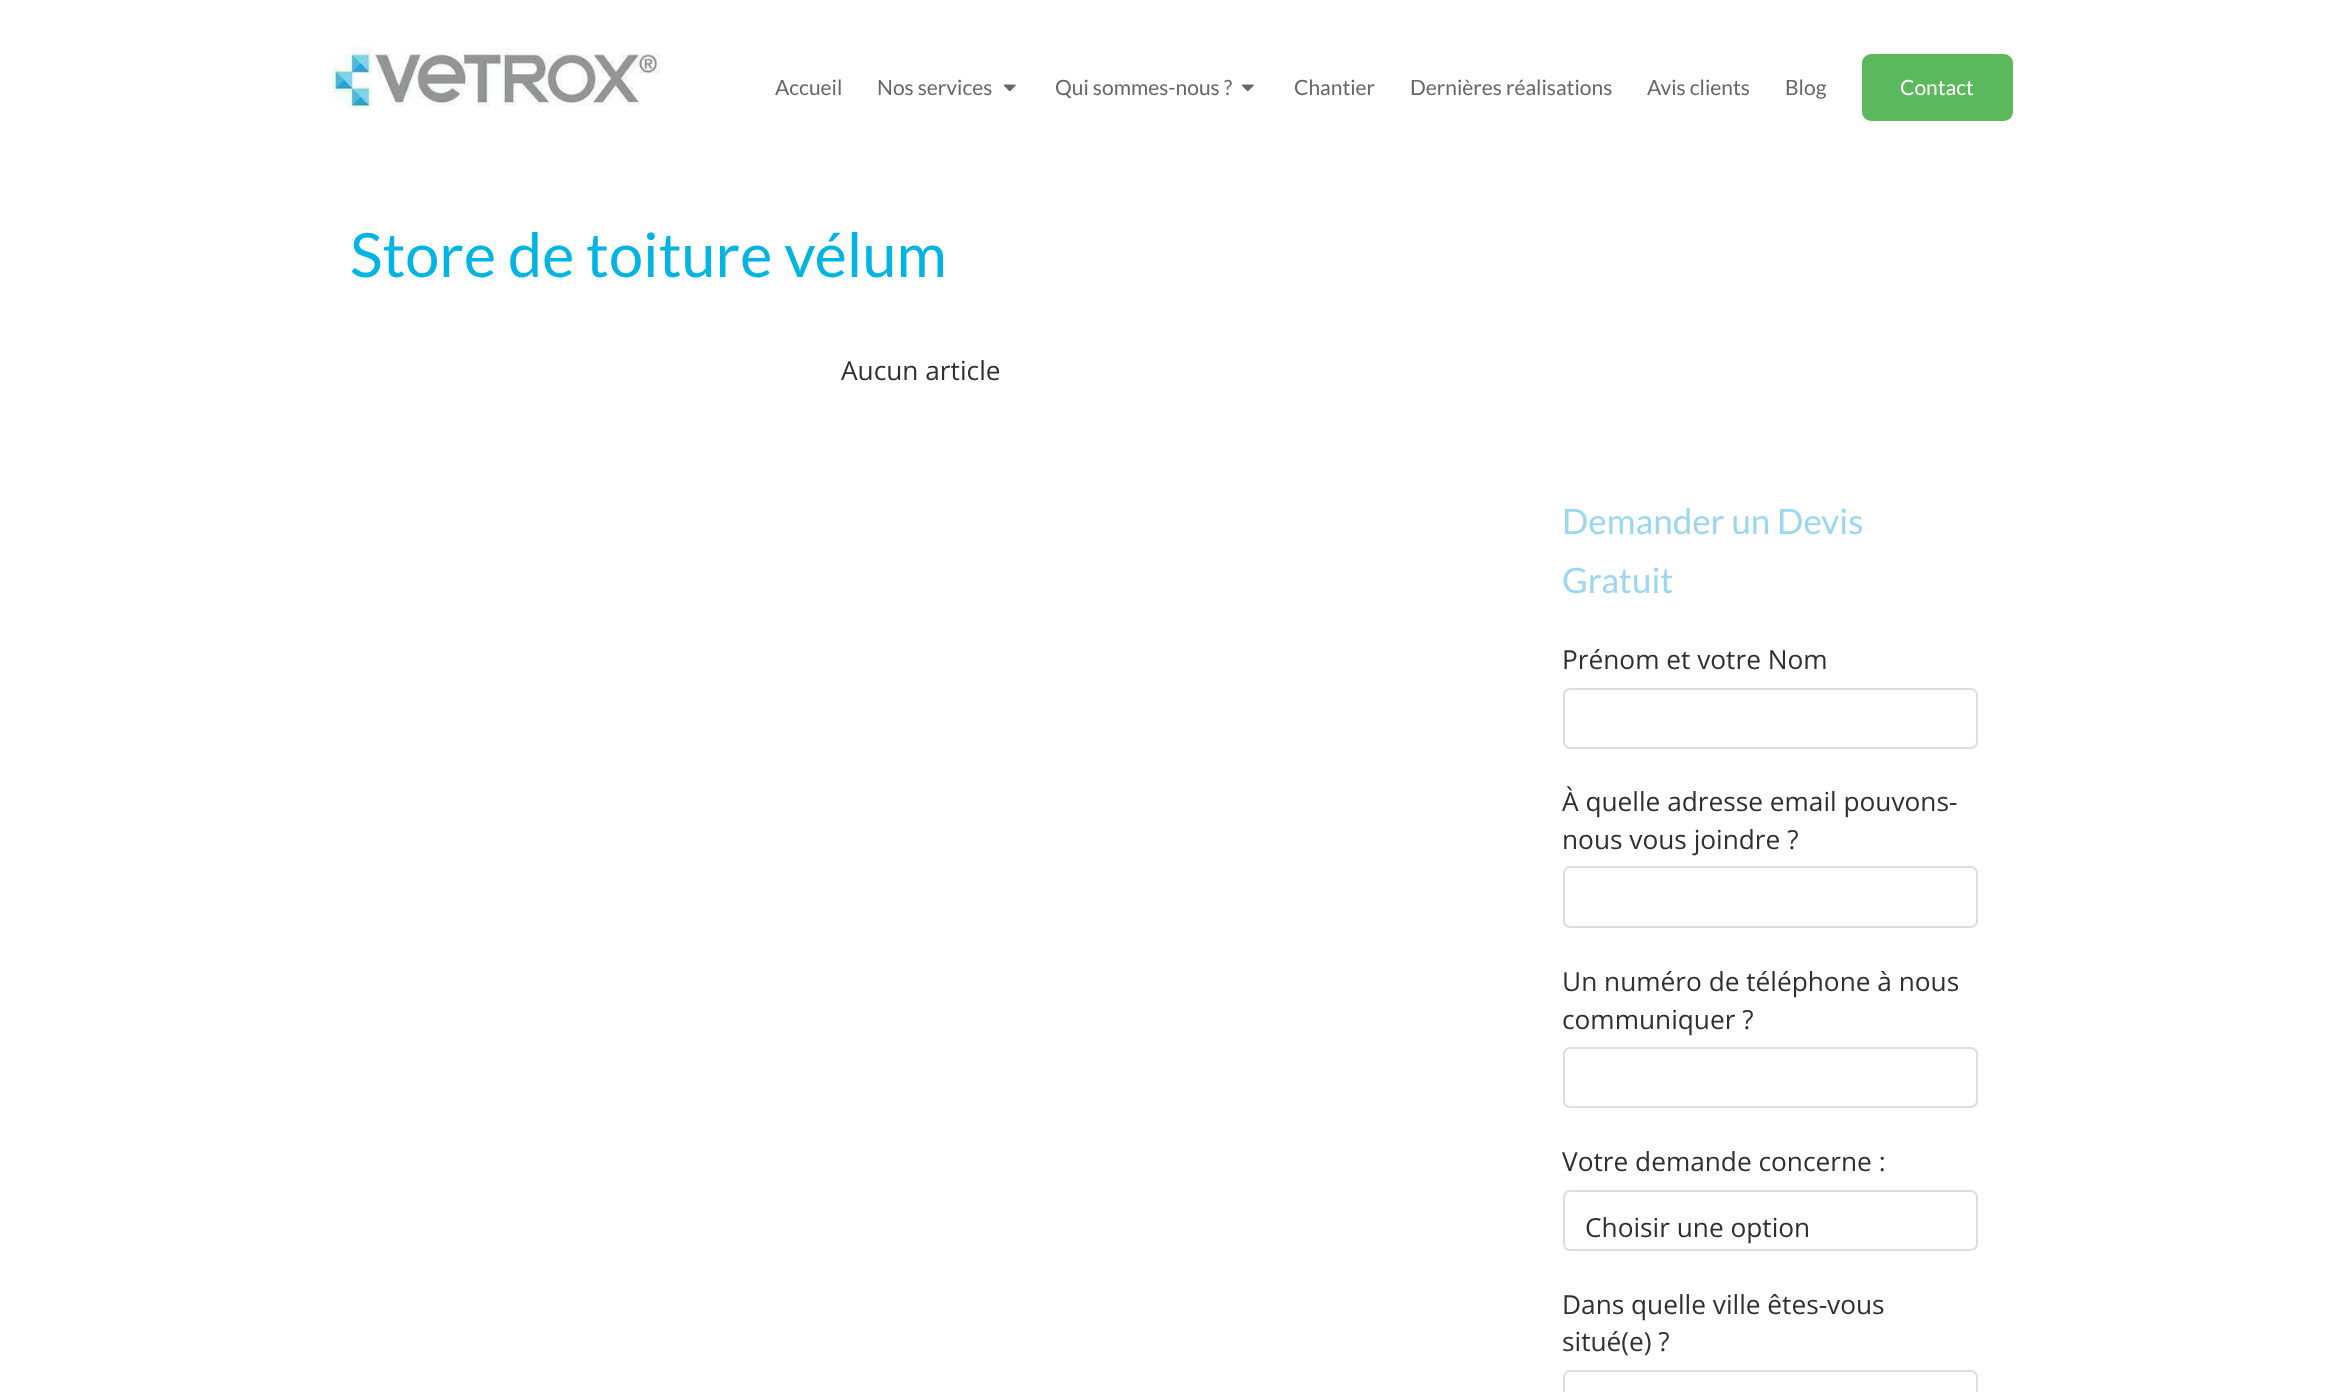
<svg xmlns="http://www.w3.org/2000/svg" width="2344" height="1392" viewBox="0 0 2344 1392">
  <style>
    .t1 { font: 21px Lato; fill: #666; }
    .t2 { font: 21px Lato; fill: #fff; }
    .t3 { font: 61.25px Lato; fill: #00b5e4; }
    .t4 { font: 26.25px Open Sans; fill: #2f2f2f; }
    .t5 { font: 35px Lato; fill: #9bd7f1; }
  </style>
  <rect width="100%" height="100%" fill="#fff"/>
  <image x="332" y="47" width="328" height="62" href="images/1.png"/>
  <text x="775" y="95" class="t1">Accueil</text>
  <text x="877" y="95" class="t1">Nos services</text>
  <image x="1003" y="84" width="13" height="8" href="images/2.png"/>
  <text x="1055" y="95" class="t1">Qui sommes-nous ?</text>
  <image x="1241" y="84" width="13" height="8" href="images/2.png"/>
  <text x="1294" y="95" class="t1">Chantier</text>
  <text x="1410" y="95" class="t1">Dernières réalisations</text>
  <text x="1647" y="95" class="t1">Avis clients</text>
  <text x="1785" y="95" class="t1">Blog</text>
  <rect x="1862" y="54" width="151" height="67" rx="9" fill="#5cb85c"/>
  <text x="1900" y="95" class="t2">Contact</text>
  <text x="350" y="277" class="t3">Store de toiture vélum</text>
  <text x="841" y="380" class="t4">Aucun article</text>
  <text x="1562" y="534" class="t5">Demander un Devis</text>
  <text x="1562" y="593" class="t5">Gratuit</text>
  <text x="1562" y="669" class="t4">Prénom et votre Nom</text>
  <rect x="1564" y="689" width="413" height="59" rx="6" fill="none" stroke="#ddd" stroke-width="2"/>
  <text x="1562" y="811" class="t4">À quelle adresse email pouvons-</text>
  <text x="1562" y="849" class="t4">nous vous joindre ?</text>
  <rect x="1564" y="867" width="413" height="60" rx="6" fill="none" stroke="#ddd" stroke-width="2"/>
  <text x="1562" y="991" class="t4">Un numéro de téléphone à nous</text>
  <text x="1562" y="1029" class="t4">communiquer ?</text>
  <rect x="1564" y="1048" width="413" height="59" rx="6" fill="none" stroke="#ddd" stroke-width="2"/>
  <text x="1562" y="1171" class="t4">Votre demande concerne :</text>
  <rect x="1564" y="1191" width="413" height="59" rx="6" fill="none" stroke="#ddd" stroke-width="2"/>
  <text x="1585" y="1237" class="t4">Choisir une option</text>
  <text x="1562" y="1314" class="t4">Dans quelle ville êtes-vous</text>
  <text x="1562" y="1351" class="t4">situé(e) ?</text>
  <rect x="1564" y="1371" width="413" height="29" rx="6" fill="none" stroke="#ddd" stroke-width="2"/>
</svg>
